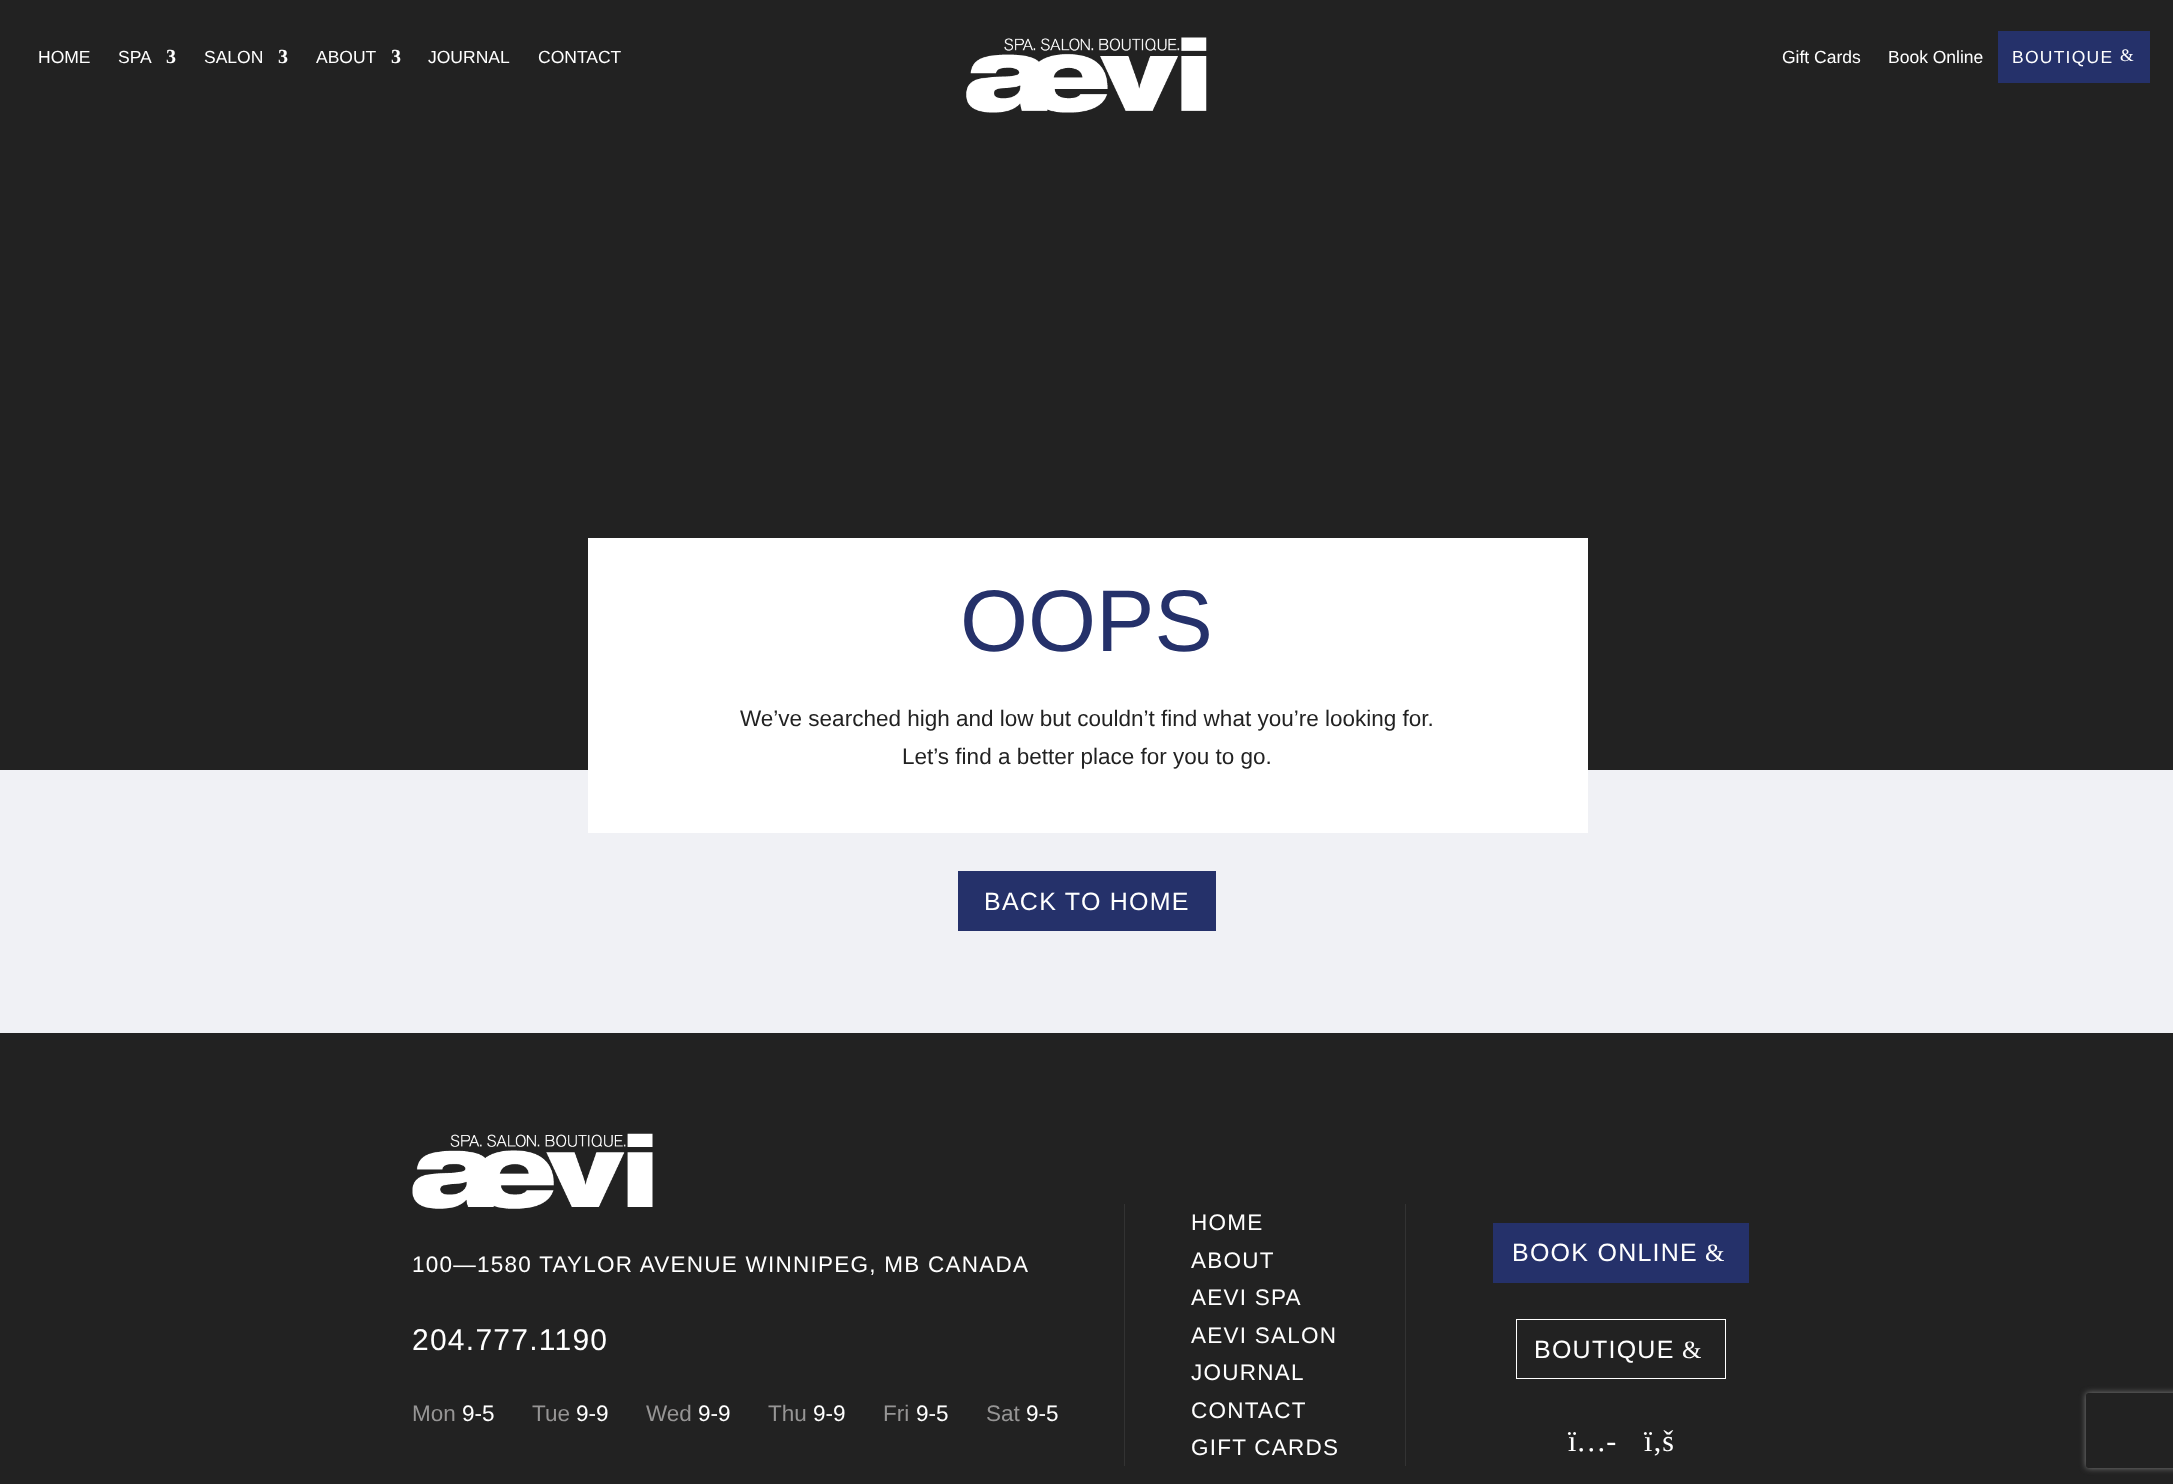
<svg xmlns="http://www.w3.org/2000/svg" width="2173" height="1484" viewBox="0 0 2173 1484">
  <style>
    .t1 { font: 17.5px Liberation Sans; fill: #fff; }
    .t2 { font: bold 20px Liberation Serif; fill: #fff; }
    .t3 { font: 17.5px Liberation Sans; letter-spacing: 1.25px; fill: #fff; }
    .t4 { font: 17.5px Liberation Serif; letter-spacing: 1.25px; fill: #fff; }
    .t5 { font: 87.5px Liberation Sans; fill: #25316a; }
    .t6 { font: 22.5px Liberation Sans; fill: #222; }
    .t7 { font: 25px Liberation Sans; letter-spacing: 1.25px; fill: #fff; }
    .t8 { font: 22.5px Liberation Sans; letter-spacing: 1.25px; fill: #fff; }
    .t9 { font: 30px Liberation Sans; letter-spacing: 1.25px; fill: #fff; }
    .t10 { font: 22.5px Liberation Sans; fill: #969595; }
    .t11 { font: 22.5px Liberation Sans; fill: #fff; }
    .t12 { font: 25px Liberation Serif; letter-spacing: 1.25px; fill: #fff; }
    .t13 { font: 30px Liberation Serif; fill: #fff; }
  </style>
  <defs>
    <clipPath id="clip1"><path d="M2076 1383H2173V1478H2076ZM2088.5 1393H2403.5C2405 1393 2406 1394 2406 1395.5V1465.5C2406 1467 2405 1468 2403.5 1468H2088.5C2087 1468 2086 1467 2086 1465.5V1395.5C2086 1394 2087 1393 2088.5 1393Z" clip-rule="evenodd"/></clipPath>
  </defs>
  <rect width="100%" height="100%" fill="#222"/>
  <text x="38" y="63" class="t1">HOME</text>
  <text x="118" y="63" class="t1">SPA</text>
  <text x="166" y="63" class="t2">3</text>
  <text x="204" y="63" class="t1">SALON</text>
  <text x="278" y="63" class="t2">3</text>
  <text x="316" y="63" class="t1">ABOUT</text>
  <text x="391" y="63" class="t2">3</text>
  <text x="428" y="63" class="t1">JOURNAL</text>
  <text x="538" y="63" class="t1">CONTACT</text>
  <image x="966" y="37" width="241" height="76" href="images/1.png"/>
  <text x="1782" y="63" class="t1">Gift Cards</text>
  <text x="1888" y="63" class="t1">Book Online</text>
  <rect x="1998" y="31" width="152" height="52" fill="#25316a"/>
  <text x="2012" y="63" class="t3">BOUTIQUE</text>
  <text x="2120" y="61" class="t4">&amp;</text>
  <rect x="0" y="770" width="2173" height="263" fill="#f0f1f5"/>
  <rect x="588" y="538" width="1000" height="295" fill="#fff"/>
  <text x="960" y="651" class="t5">OOPS</text>
  <text x="740" y="726" class="t6">We’ve searched high and low but couldn’t find what you’re looking for.</text>
  <text x="902" y="764" class="t6">Let’s find a better place for you to go.</text>
  <rect x="958" y="871" width="258" height="60" fill="#25316a"/>
  <text x="984" y="910" class="t7">BACK TO HOME</text>
  <image x="412" y="1133" width="241" height="76" href="images/2.png"/>
  <text x="412" y="1272" class="t8">100—1580 TAYLOR AVENUE WINNIPEG, MB CANADA</text>
  <text x="412" y="1350" class="t9">204.777.1190</text>
  <text x="412" y="1421" class="t10">Mon</text>
  <text x="462" y="1421" class="t11">9-5</text>
  <text x="532" y="1421" class="t10">Tue</text>
  <text x="576" y="1421" class="t11">9-9</text>
  <text x="646" y="1421" class="t10">Wed</text>
  <text x="698" y="1421" class="t11">9-9</text>
  <text x="768" y="1421" class="t10">Thu</text>
  <text x="813" y="1421" class="t11">9-9</text>
  <text x="883" y="1421" class="t10">Fri</text>
  <text x="916" y="1421" class="t11">9-5</text>
  <text x="986" y="1421" class="t10">Sat</text>
  <text x="1026" y="1421" class="t11">9-5</text>
  <rect x="1405" y="1204" width="1" height="262" fill="#333"/>
  <rect x="1124" y="1204" width="1" height="262" fill="#333"/>
  <text x="1191" y="1230" class="t8">HOME</text>
  <text x="1191" y="1268" class="t8">ABOUT</text>
  <text x="1191" y="1305" class="t8">AEVI SPA</text>
  <text x="1191" y="1343" class="t8">AEVI SALON</text>
  <text x="1191" y="1380" class="t8">JOURNAL</text>
  <text x="1191" y="1418" class="t8">CONTACT</text>
  <text x="1191" y="1455" class="t8">GIFT CARDS</text>
  <rect x="1493" y="1223" width="256" height="60" fill="#25316a"/>
  <text x="1512" y="1261" class="t7">BOOK ONLINE</text>
  <text x="1705" y="1261" class="t12">&amp;</text>
  <rect x="1516.5" y="1319.5" width="209" height="59" fill="none" stroke="#fff"/>
  <text x="1534" y="1358" class="t7">BOUTIQUE</text>
  <text x="1682" y="1358" class="t12">&amp;</text>
  <text x="1568" y="1451" class="t13">ï…-</text>
  <text x="1644" y="1451" class="t13">ï‚š</text>
  <g clip-path="url(#clip1)">
    <rect x="2086" y="1393" width="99" height="75" rx="2.5" fill="#808080" filter="blur(3px)"/>
  </g>
</svg>
